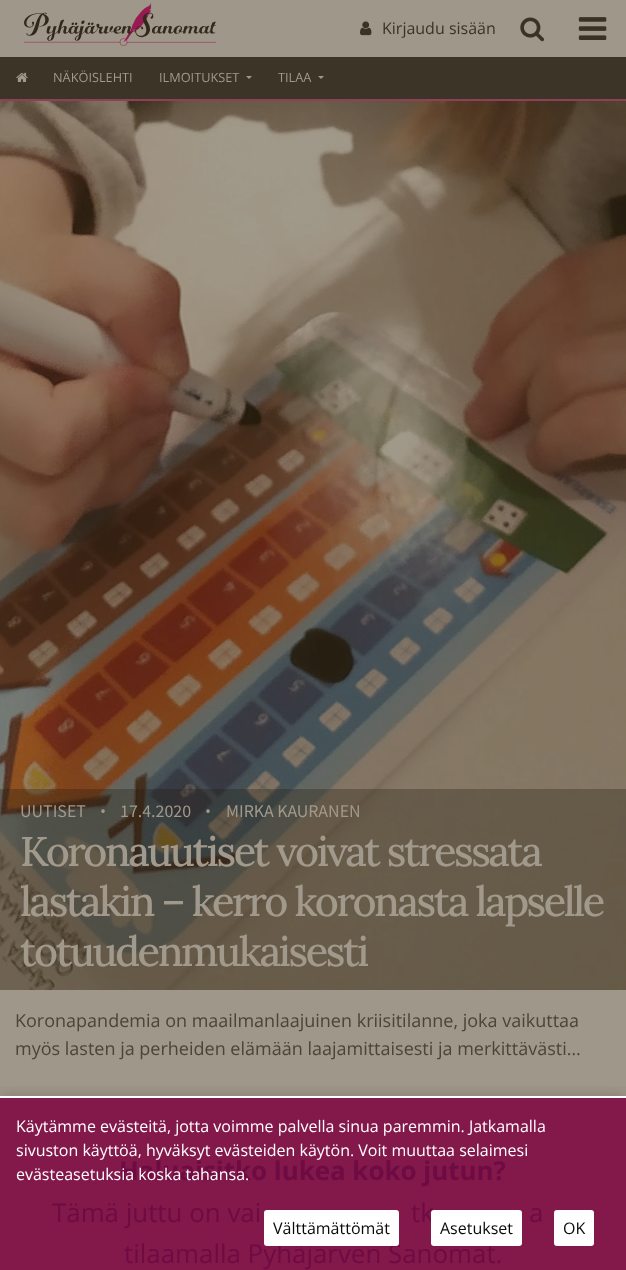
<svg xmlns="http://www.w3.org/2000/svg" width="626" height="1270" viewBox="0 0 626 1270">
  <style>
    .t1 { font: 16px Open Sans; fill: #3b3325; }
    .t2 { font: 12.75px Open Sans; fill: #a1998b; }
    .t3 { font: 16px Noto Sans JP; fill: #a1998b; }
    .t4 { font: 16px Open Sans; fill: #a1998b; }
    .t5 { font: 500 41.6px Lora; letter-spacing: -2.4px; fill: #a1998b; }
    .t6 { font: 18px Open Sans; fill: #4c4436; }
    .t7 { font: bold 25.9px Open Sans; fill: #6e0b43; }
    .t8 { font: 25.9px Open Sans; fill: #6e0b43; }
    .t9 { font: 16px Open Sans; fill: #fff; }
    .t10 { font: 16px Open Sans; fill: #0a0a0a; }
  </style>
  <defs>
    <clipPath id="clip1"><rect x="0" y="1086" width="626" height="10"/></clipPath>
  </defs>
  <rect width="100%" height="100%" fill="#9f988a"/>
  <image x="24" y="3" width="192" height="43" href="images/1.png"/>
  <image x="360" y="21" width="12" height="15" href="images/2.png"/>
  <text x="382" y="34" class="t1">Kirjaudu sisään</text>
  <image x="520" y="17" width="24" height="25" href="images/3.png"/>
  <image x="578" y="17" width="29" height="23" href="images/4.png"/>
  <rect x="0" y="57" width="626" height="42" fill="#3c3427"/>
  <rect x="0" y="99" width="626" height="2" fill="#8c4059"/>
  <image x="16" y="72" width="12" height="10" href="images/5.png"/>
  <text x="53" y="82" class="t2">NÄKÖISLEHTI</text>
  <text x="159" y="82" class="t2">ILMOITUKSET</text>
  <path d="M246 76H252L249 79Z" fill="#a1998b"/>
  <text x="278" y="82" class="t2">TILAA</text>
  <path d="M318 76H324L321 79Z" fill="#a1998b"/>
  <image x="0" y="101" width="626" height="889" href="images/6.png"/>
  <rect x="0" y="789" width="626" height="31" fill="#211a0c4d"/>
  <text x="20" y="817" class="t3">UUTISET</text>
  <text x="100" y="817" class="t4">•</text>
  <text x="120" y="817" class="t3">17.4.2020</text>
  <text x="205" y="817" class="t4">•</text>
  <text x="226" y="817" class="t3">MIRKA KAURANEN</text>
  <rect x="0" y="820" width="626" height="170" fill="#211a0c4d"/>
  <text x="20" y="866" class="t5">Koronauutiset voivat stressata</text>
  <text x="20" y="916" class="t5">lastakin – kerro koronasta lapselle</text>
  <text x="20" y="966" class="t5">totuudenmukaisesti</text>
  <rect x="0" y="1098" width="626" height="172" fill="#83184b"/>
  <text x="15" y="1027" class="t6">Koronapandemia on maailmanlaajuinen kriisitilanne, joka vaikuttaa</text>
  <text x="15" y="1055" class="t6">myös lasten ja perheiden elämään laajamittaisesti ja merkittävästi…</text>
  <text x="119" y="1180" class="t7">Haluaisitko lukea koko jutun?</text>
  <text x="52" y="1222" class="t8">Tämä juttu on vai</text>
  <text x="411" y="1222" class="t8">tk</text>
  <text x="529" y="1222" class="t8">a</text>
  <text x="124" y="1263" class="t8">tilaamalla Pyhäjärven Sanomat.</text>
  <g clip-path="url(#clip1)">
    <rect x="0" y="1096" width="626" height="174" fill="#00000033" filter="blur(8px)"/>
  </g>
  <rect x="0" y="1096" width="626" height="2" fill="#fff"/>
  <text x="16" y="1132" class="t9">Käytämme evästeitä, jotta voimme palvella sinua paremmin. Jatkamalla</text>
  <text x="16" y="1156" class="t9">sivuston käyttöä, hyväksyt evästeiden käytön. Voit muuttaa selaimesi</text>
  <text x="16" y="1180" class="t9">evästeasetuksia koska tahansa.</text>
  <rect x="264" y="1210" width="135" height="36" rx="3" fill="#fff"/>
  <text x="273" y="1234" class="t10">Välttämättömät</text>
  <rect x="431" y="1210" width="91" height="36" rx="3" fill="#fff"/>
  <text x="440" y="1234" class="t10">Asetukset</text>
  <rect x="554" y="1210" width="40" height="36" rx="3" fill="#fff"/>
  <text x="563" y="1234" class="t10">OK</text>
</svg>
